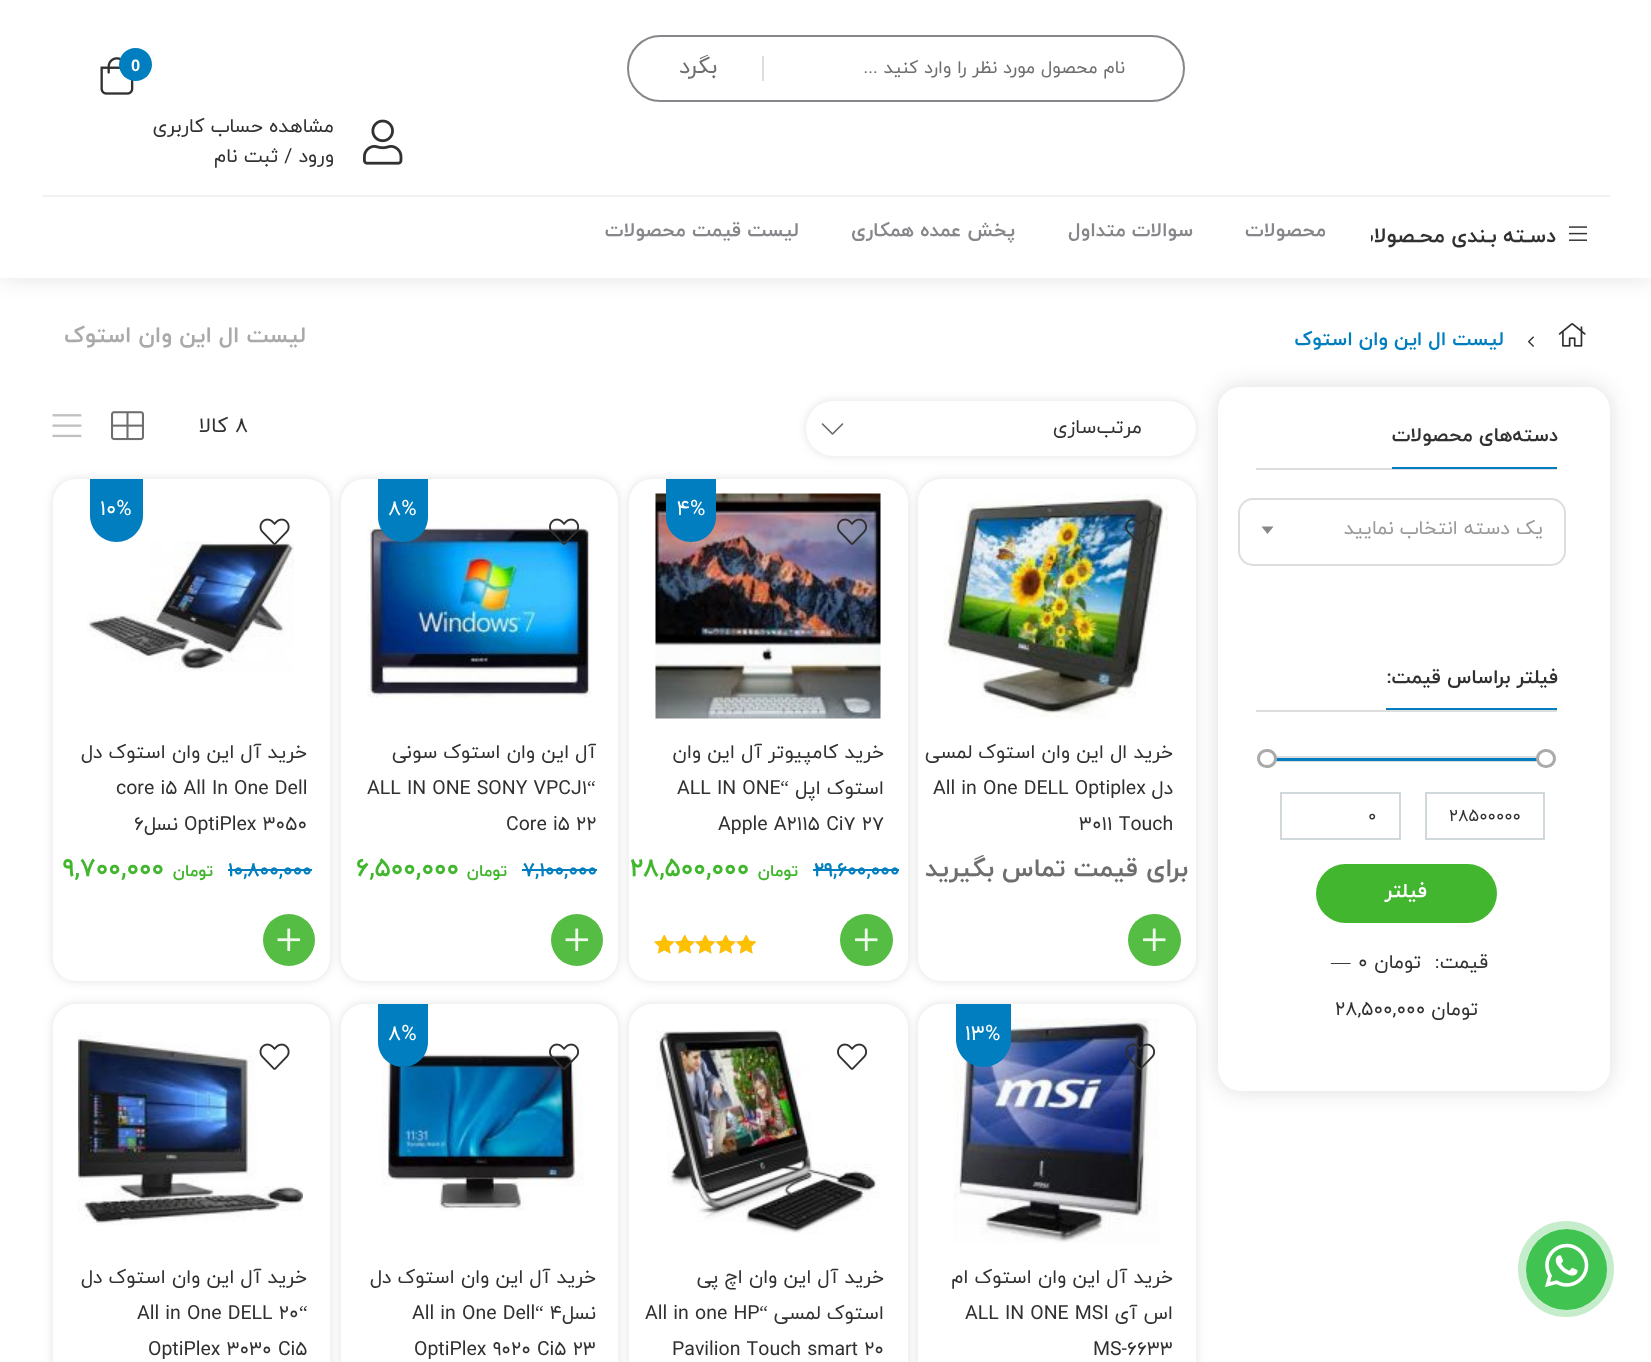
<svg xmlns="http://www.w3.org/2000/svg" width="1651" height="1362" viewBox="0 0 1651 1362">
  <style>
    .t1 { font: 18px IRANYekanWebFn; direction: rtl; fill: #6e6e6e; }
    .t2 { font: 22.5px IRANYekanWebFn; direction: rtl; fill: #6e6e6e; }
    .t3 { font: bold 16.5px Liberation Sans; fill: #fff; }
    .t4 { font: 19.5px IRANYekanWebFn; direction: rtl; fill: #313131; }
    .t5 { font: bold 21px IRANYekanWebFn; direction: rtl; fill: #313131; }
    .t6 { font: bold 19.5px IRANYekanWebFn; direction: rtl; fill: #86868b; }
    .t7 { font: bold 19.5px IRANYekanWebFn; direction: rtl; fill: #017ebf; }
    .t8 { font: bold 22.5px IRANYekanWebFn; direction: rtl; fill: #aaa; }
    .t9 { font: bold 19.5px IRANYekanWebFn; direction: rtl; fill: #313131; }
    .t10 { font: 19.5px IRANYekanWebFn; direction: rtl; fill: #999; }
    .t11 { font: 17px IRANYekanWebFn; fill: #313131; }
    .t12 { font: bold 20px IRANYekanWebFn; direction: rtl; fill: #fff; }
    .t13 { font: 19.5px IRANYekanWebFn; fill: #313131; }
    .t14 { font: 19.5px Liberation Serif; fill: #313131; }
    .t15 { font: 21px IRANYekanWebFn; fill: #313131; }
    .t16 { font: 21px IRANYekanWebFn; direction: rtl; fill: #313131; }
    .t17 { font: bold 25.5px IRANYekanWebFn; direction: rtl; fill: #6e6e6e; }
    .t18 { font: 21px IRANYekanWebFn; fill: #fff; }
    .t19 { font: 19.5px Liberation Serif; direction: rtl; fill: #313131; }
    .t20 { font: bold 19.5px IRANYekanWebFn; fill: #017ebf; }
    .t21 { font: bold 16.5px IRANYekanWebFn; direction: rtl; fill: #42b62e; }
    .t22 { font: bold 25.5px IRANYekanWebFn; fill: #42b62e; }
  </style>
  <defs>
    <clipPath id="clip1"><rect x="1371" y="197" width="216" height="91"/></clipPath>
    <clipPath id="clip2"><path d="M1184 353H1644V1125H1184ZM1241 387H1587C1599.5 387 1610 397.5 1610 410V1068C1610 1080.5 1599.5 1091 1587 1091H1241C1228.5 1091 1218 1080.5 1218 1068V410C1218 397.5 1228.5 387 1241 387Z" clip-rule="evenodd"/></clipPath>
  </defs>
  <rect width="100%" height="100%" fill="#fff"/>
  <rect x="0" y="2" width="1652" height="277" fill="#0000001a" filter="blur(11px)"/>
  <rect x="0" y="0" width="1651" height="278" fill="#fff"/>
  <rect x="42" y="195" width="1568" height="2" fill="#f2f2f2"/>
  <rect x="628" y="36" width="556" height="65" rx="32.5" fill="none" stroke="#86868b" stroke-width="2"/>
  <text x="1125" y="73" class="t1">نام محصول مورد نظر را وارد کنید ...</text>
  <rect x="762" y="56" width="2" height="25" fill="#ddd"/>
  <text x="717" y="73" class="t2">بگرد</text>
  <image x="100" y="57" width="34" height="38" href="images/1.png"/>
  <circle cx="135.5" cy="64.5" r="16.5" fill="#017ebf"/>
  <text x="131" y="71" class="t3">0</text>
  <image x="363" y="119" width="40" height="46" href="images/2.png"/>
  <text x="334" y="132" class="t4">مشاهده حساب کاربری</text>
  <text x="334" y="162" class="t4">ورود / ثبت نام</text>
  <image x="1569" y="226" width="18" height="15" href="images/3.png"/>
  <g clip-path="url(#clip1)">
    <text x="1556" y="242" class="t5">دسـته بـندی محـصولات</text>
  </g>
  <text x="1326" y="236" class="t6">محصولات</text>
  <text x="1193" y="236" class="t6">سوالات متداول</text>
  <text x="1015" y="236" class="t6">پخش عمده همکاری</text>
  <text x="799" y="236" class="t6">لیست قیمت محصولات</text>
  <image x="1558" y="323" width="28" height="24" href="images/4.png"/>
  <image x="1527" y="336" width="7" height="11" href="images/5.png"/>
  <text x="1504" y="345" class="t7">لیست ال این وان استوک</text>
  <text x="306" y="342" class="t8">لیست ال این وان استوک</text>
  <circle cx="1566" cy="1269" r="44" fill="none" stroke="#c6edcb" stroke-width="8"/>
  <circle cx="1566.5" cy="1269.5" r="40.5" fill="#40c351"/>
  <image x="1545" y="1243" width="44" height="44" href="images/6.png"/>
  <g clip-path="url(#clip2)">
    <rect x="1218" y="387" width="392" height="704" rx="23" fill="#1a1a1a26" filter="blur(11px)"/>
  </g>
  <rect x="1256" y="468" width="301" height="2" fill="#ddd"/>
  <text x="1558" y="441" class="t9">دسته‌های محصولات</text>
  <rect x="1392" y="467" width="165" height="2" fill="#017ebf"/>
  <rect x="1239" y="499" width="326" height="66" rx="14" fill="none" stroke="#ddd" stroke-width="2"/>
  <text x="1543" y="534" class="t10">یک دسته انتخاب نمایید</text>
  <path d="M1261.5 526.5H1273.5L1267.5 534Z" fill="#888"/>
  <rect x="1256" y="710" width="301" height="2" fill="#ddd"/>
  <text x="1558" y="683" class="t9">فیلتر براساس قیمت:</text>
  <rect x="1386" y="708" width="171" height="2" fill="#017ebf"/>
  <rect x="1266" y="757" width="281" height="4" fill="none" stroke="#ddd" stroke-width="2"/>
  <rect x="1276" y="758" width="261" height="3" fill="#017ebf"/>
  <rect x="1537.5" y="750.5" width="17" height="16" rx="8" fill="#fff" stroke="#aaa" stroke-width="3"/>
  <rect x="1258.5" y="750.5" width="17" height="16" rx="8" fill="#fff" stroke="#aaa" stroke-width="3"/>
  <rect x="1426" y="793" width="118" height="46" fill="none" stroke="#d0d8db" stroke-width="2"/>
  <text x="1449" y="821" class="t11">28500000</text>
  <rect x="1281" y="793" width="119" height="46" fill="none" stroke="#d0d8db" stroke-width="2"/>
  <text x="1368" y="821" class="t11">0</text>
  <rect x="1316" y="864" width="181" height="59" rx="29.5" fill="#42b62e"/>
  <text x="1427" y="897" class="t12">فیلتر</text>
  <text x="1488" y="968" class="t4">قیمت:</text>
  <text x="1421" y="968" class="t4">تومان</text>
  <text x="1358" y="968" class="t13">0</text>
  <text x="1331" y="968" class="t14">—</text>
  <text x="1478" y="1015" class="t4">تومان</text>
  <text x="1335" y="1015" class="t13">28,500,000</text>
  <rect x="806" y="401" width="390" height="55" rx="27.5" fill="#33333326" filter="blur(5px)"/>
  <rect x="806" y="401" width="390" height="55" rx="27.5" fill="#fff"/>
  <image x="821" y="423" width="23" height="12" href="images/7.png"/>
  <text x="1142" y="433" class="t4">مرتب‌سازی</text>
  <text x="235" y="432" class="t15">8</text>
  <text x="228" y="432" class="t16">کالا</text>
  <image x="111" y="411" width="33" height="30" href="images/8.png"/>
  <image x="52" y="414" width="30" height="24" href="images/9.png"/>
  <rect x="918" y="479" width="278" height="502" rx="23" fill="#33333326" filter="blur(5px)"/>
  <rect x="918" y="479" width="278" height="502" rx="23" fill="#fff"/>
  <image x="943" y="493" width="226" height="226" href="images/10.png"/>
  <image x="1125" y="518" width="30" height="27" href="images/11.png"/>
  <text x="1173" y="758" class="t4">خرید ال این وان استوک لمسی</text>
  <text x="1173" y="794" class="t4">دل</text>
  <text x="933" y="794" class="t13">All in One DELL Optiplex</text>
  <text x="1079" y="830" class="t13">3011 Touch</text>
  <text x="1188" y="876" class="t17">برای قیمت تماس بگیرید</text>
  <rect x="1128" y="914" width="53" height="52" rx="26" fill="#55bd43"/>
  <image x="1143" y="928" width="23" height="23" href="images/12.png"/>
  <rect x="629" y="479" width="279" height="502" rx="23" fill="#33333326" filter="blur(5px)"/>
  <rect x="629" y="479" width="279" height="502" rx="23" fill="#fff"/>
  <image x="655" y="493" width="226" height="226" href="images/13.png"/>
  <path d="M666 479H716V517C716 531 705 542 691 542C677 542 666 531 666 517Z" fill="#017ebf"/>
  <text x="677" y="515" class="t18">4%</text>
  <image x="837" y="518" width="31" height="27" href="images/14.png"/>
  <text x="884" y="758" class="t4">خرید کامپیوتر آل این وان</text>
  <text x="884" y="794" class="t4">استوک اپل</text>
  <text x="789" y="794" class="t19">“</text>
  <text x="677" y="794" class="t13">ALL IN ONE</text>
  <text x="718" y="830" class="t13">Apple A2115 Ci7 27</text>
  <text x="814" y="876" class="t20">29,600,000</text>
  <rect x="813" y="869" width="86" height="2" fill="#017ebf"/>
  <text x="798" y="876" class="t21">تومان</text>
  <text x="630" y="876" class="t22">28,500,000</text>
  <rect x="840" y="914" width="53" height="52" rx="26" fill="#55bd43"/>
  <image x="855" y="928" width="23" height="23" href="images/12.png"/>
  <image x="654" y="935" width="102" height="19" href="images/15.png"/>
  <image x="654" y="935" width="102" height="19" href="images/16.png"/>
  <rect x="341" y="479" width="277" height="502" rx="23" fill="#33333326" filter="blur(5px)"/>
  <rect x="341" y="479" width="277" height="502" rx="23" fill="#fff"/>
  <image x="367" y="518" width="224" height="182" href="images/17.png"/>
  <path d="M378 479H428V517C428 531 417 542 403 542C389 542 378 531 378 517Z" fill="#017ebf"/>
  <text x="388" y="515" class="t18">8%</text>
  <image x="549" y="518" width="31" height="27" href="images/18.png"/>
  <text x="596" y="758" class="t4">آل این وان استوک سونی</text>
  <text x="587" y="794" class="t14">“</text>
  <text x="367" y="794" class="t13">ALL IN ONE SONY VPCJ1</text>
  <text x="506" y="830" class="t13">Core i5 22</text>
  <text x="523" y="876" class="t20">7,100,000</text>
  <rect x="522" y="869" width="75" height="2" fill="#017ebf"/>
  <text x="507" y="876" class="t21">تومان</text>
  <text x="356" y="876" class="t22">6,500,000</text>
  <circle cx="577" cy="940" r="26" fill="#55bd43"/>
  <image x="565" y="928" width="23" height="23" href="images/19.png"/>
  <rect x="53" y="479" width="277" height="502" rx="23" fill="#33333326" filter="blur(5px)"/>
  <rect x="53" y="479" width="277" height="502" rx="23" fill="#fff"/>
  <image x="87" y="541" width="207" height="131" href="images/20.png"/>
  <path d="M90 479H143V515.5C143 530 131 542 116.5 542C102 542 90 530 90 515.5Z" fill="#017ebf"/>
  <text x="100" y="515" class="t18">10%</text>
  <image x="259" y="518" width="31" height="27" href="images/21.png"/>
  <text x="307" y="758" class="t4">خرید آل این وان استوک دل</text>
  <text x="116" y="794" class="t13">core i5 All In One Dell</text>
  <text x="184" y="830" class="t13">OptiPlex 3050</text>
  <text x="178" y="830" class="t4">نسل</text>
  <text x="134" y="830" class="t13">6</text>
  <text x="228" y="876" class="t20">10,800,000</text>
  <rect x="228" y="869" width="84" height="2" fill="#017ebf"/>
  <text x="213" y="876" class="t21">تومان</text>
  <text x="63" y="876" class="t22">9,700,000</text>
  <circle cx="289" cy="940" r="26" fill="#55bd43"/>
  <image x="277" y="928" width="23" height="23" href="images/19.png"/>
  <rect x="918" y="1004" width="278" height="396" rx="23" fill="#33333326" filter="blur(5px)"/>
  <rect x="918" y="1004" width="278" height="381" rx="23" fill="#fff"/>
  <image x="953" y="1018" width="206" height="225" href="images/22.png"/>
  <path d="M956 1004H1011V1039.5C1011 1054.5 998.5 1067 983.5 1067C968.5 1067 956 1054.5 956 1039.5Z" fill="#017ebf"/>
  <text x="965" y="1040" class="t18">13%</text>
  <image x="1125" y="1043" width="31" height="27" href="images/23.png"/>
  <text x="1173" y="1283" class="t4">خرید آل این وان استوک ام</text>
  <text x="1173" y="1319" class="t4">اس آی</text>
  <text x="965" y="1319" class="t13">ALL IN ONE MSI</text>
  <text x="1093" y="1355" class="t13">MS-6633</text>
  <rect x="629" y="1004" width="279" height="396" rx="23" fill="#33333326" filter="blur(5px)"/>
  <rect x="629" y="1004" width="279" height="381" rx="23" fill="#fff"/>
  <image x="655" y="1030" width="226" height="204" href="images/24.png"/>
  <image x="837" y="1043" width="31" height="27" href="images/25.png"/>
  <text x="884" y="1283" class="t4">خرید آل این وان اچ پی</text>
  <text x="884" y="1319" class="t4">استوک لمسی</text>
  <text x="768" y="1319" class="t19">“</text>
  <text x="645" y="1319" class="t13">All in one HP</text>
  <text x="672" y="1355" class="t13">Pavilion Touch smart 20</text>
  <rect x="341" y="1004" width="277" height="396" rx="23" fill="#33333326" filter="blur(5px)"/>
  <rect x="341" y="1004" width="277" height="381" rx="23" fill="#fff"/>
  <image x="381" y="1052" width="203" height="159" href="images/26.png"/>
  <path d="M378 1004H428V1042C428 1056 417 1067 403 1067C389 1067 378 1056 378 1042Z" fill="#017ebf"/>
  <text x="388" y="1040" class="t18">8%</text>
  <image x="549" y="1043" width="31" height="27" href="images/27.png"/>
  <text x="596" y="1283" class="t4">خرید آل این وان استوک دل</text>
  <text x="596" y="1319" class="t4">نسل</text>
  <text x="550" y="1319" class="t13">4</text>
  <text x="535" y="1319" class="t14">“</text>
  <text x="412" y="1319" class="t13">All in One Dell</text>
  <text x="414" y="1355" class="t13">OptiPlex 9020 Ci5 23</text>
  <rect x="53" y="1004" width="277" height="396" rx="23" fill="#33333326" filter="blur(5px)"/>
  <rect x="53" y="1004" width="277" height="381" rx="23" fill="#fff"/>
  <image x="78" y="1031" width="225" height="194" href="images/28.png"/>
  <image x="259" y="1043" width="31" height="27" href="images/29.png"/>
  <text x="307" y="1283" class="t4">خرید آل این وان استوک دل</text>
  <text x="299" y="1319" class="t14">“</text>
  <text x="137" y="1319" class="t13">All in One DELL 20</text>
  <text x="148" y="1355" class="t13">OptiPlex 3030 Ci5</text>
</svg>
